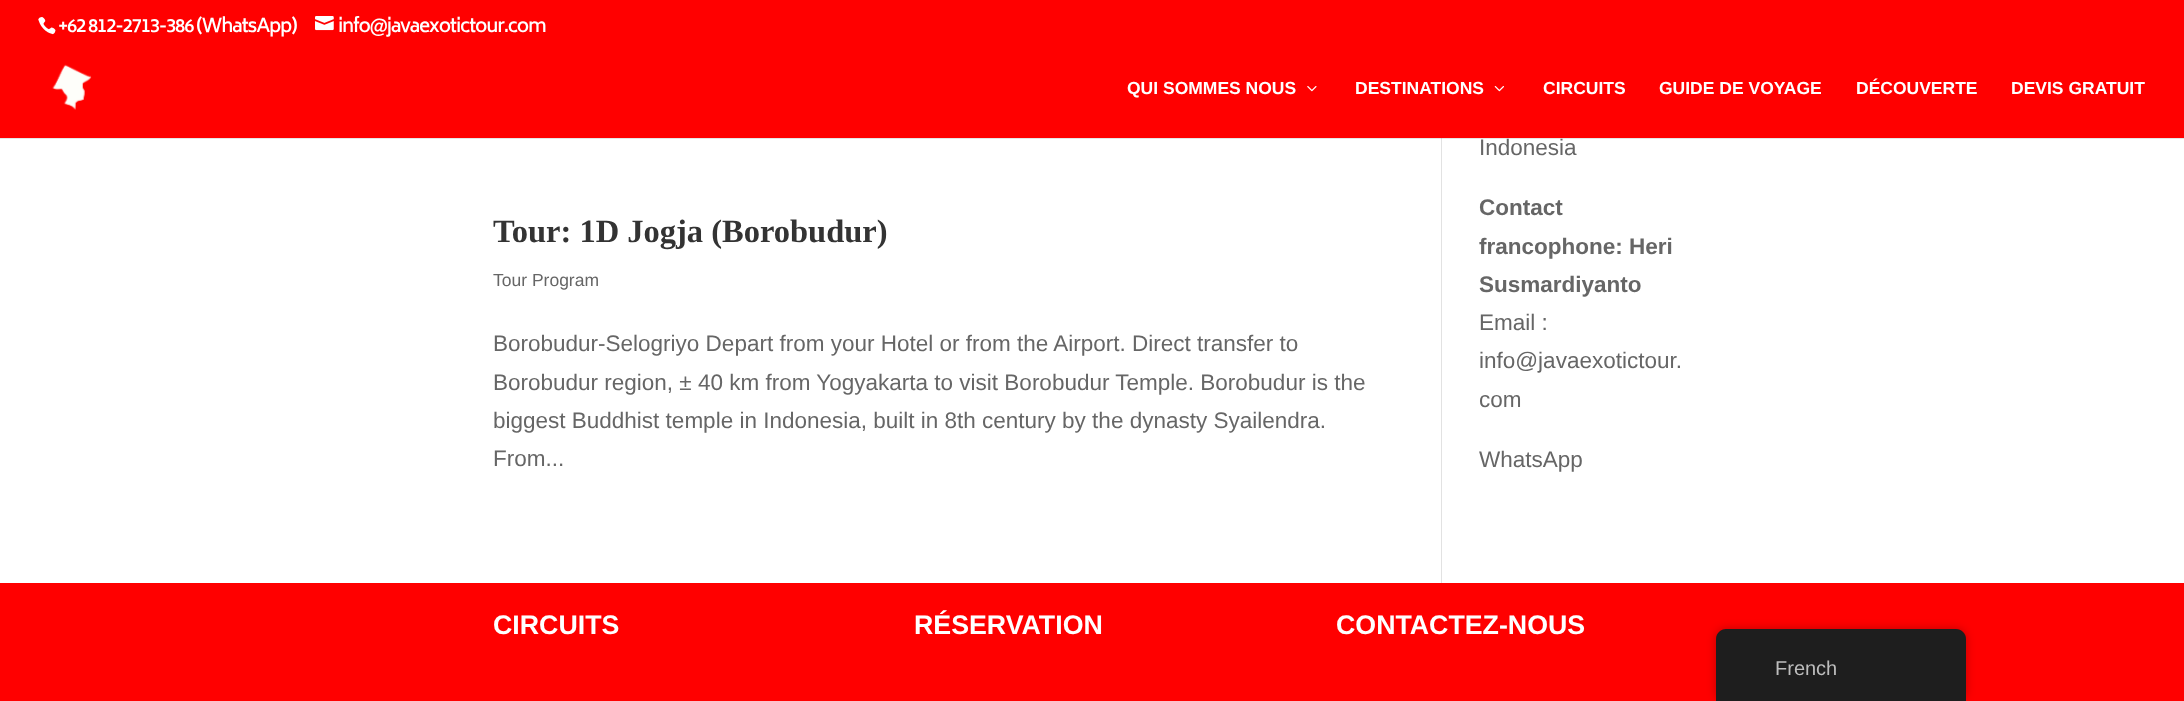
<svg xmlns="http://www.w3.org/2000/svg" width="2184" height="701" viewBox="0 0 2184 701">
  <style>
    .t1 { font: 600 18.75px Biryani; letter-spacing: -1.25px; fill: #fff; }
    .t2 { font: bold 17.5px Liberation Sans; fill: #fff; }
    .t3 { font: bold 32.5px Liberation Serif; fill: #333; }
    .t4 { font: 17.5px Liberation Sans; fill: #666; }
    .t5 { font: 22.5px Liberation Sans; fill: #666; }
    .t6 { font: bold 22.5px Liberation Sans; fill: #666; }
    .t7 { font: bold 26.75px Liberation Sans; fill: #fff; }
    .t8 { font: 20px Liberation Sans; fill: #bdbdbd; }
  </style>
  <rect width="100%" height="100%" fill="#fff"/>
  <rect x="0" y="0" width="2184" height="138" fill="#f00"/>
  <image x="38" y="17" width="18" height="18" href="images/1.png"/>
  <text x="58" y="32" class="t1">+62 812-2713-386 (WhatsApp)</text>
  <image x="315" y="16" width="19" height="15" href="images/2.png"/>
  <text x="338" y="32" class="t1">info@javaexotictour.com</text>
  <rect x="1441" y="138" width="1" height="445" fill="#e2e2e2"/>
  <rect x="0" y="138" width="2184" height="1" fill="#0000001a"/>
  <image x="52" y="64" width="40" height="46" href="images/3.png"/>
  <text x="1127" y="94" class="t2">QUI SOMMES NOUS</text>
  <image x="1307" y="86" width="10" height="6" href="images/4.png"/>
  <text x="1355" y="94" class="t2">DESTINATIONS</text>
  <image x="1494" y="86" width="10" height="6" href="images/5.png"/>
  <text x="1543" y="94" class="t2">CIRCUITS</text>
  <text x="1659" y="94" class="t2">GUIDE DE VOYAGE</text>
  <text x="1856" y="94" class="t2">DÉCOUVERTE</text>
  <text x="2011" y="94" class="t2">DEVIS GRATUIT</text>
  <text x="493" y="242" class="t3">Tour: 1D Jogja (Borobudur)</text>
  <text x="493" y="286" class="t4">Tour Program</text>
  <text x="493" y="351" class="t5">Borobudur-Selogriyo Depart from your Hotel or from the Airport. Direct transfer to</text>
  <text x="493" y="390" class="t5">Borobudur region, ± 40 km from Yogyakarta to visit Borobudur Temple. Borobudur is the</text>
  <text x="493" y="428" class="t5">biggest Buddhist temple in Indonesia, built in 8th century by the dynasty Syailendra.</text>
  <text x="493" y="466" class="t5">From...</text>
  <text x="1479" y="155" class="t5">Indonesia</text>
  <text x="1479" y="215" class="t6">Contact</text>
  <text x="1479" y="254" class="t6">francophone: Heri</text>
  <text x="1479" y="292" class="t6">Susmardiyanto</text>
  <text x="1479" y="330" class="t5">Email :</text>
  <text x="1479" y="368" class="t5">info@javaexotictour.</text>
  <text x="1479" y="407" class="t5">com</text>
  <text x="1479" y="467" class="t5">WhatsApp</text>
  <rect x="0" y="583" width="2184" height="118" fill="#f00"/>
  <text x="493" y="634" class="t7">CIRCUITS</text>
  <text x="914" y="634" class="t7">RÉSERVATION</text>
  <text x="1336" y="634" class="t7">CONTACTEZ-NOUS</text>
  <rect x="1716" y="629" width="250" height="72" rx="10" fill="#00000040" filter="blur(5px)"/>
  <path d="M1726 629H1956C1961.5 629 1966 633.5 1966 639V701H1716V639C1716 633.5 1720.5 629 1726 629Z" fill="#1e1e1e"/>
  <text x="1775" y="675" class="t8">French</text>
</svg>
